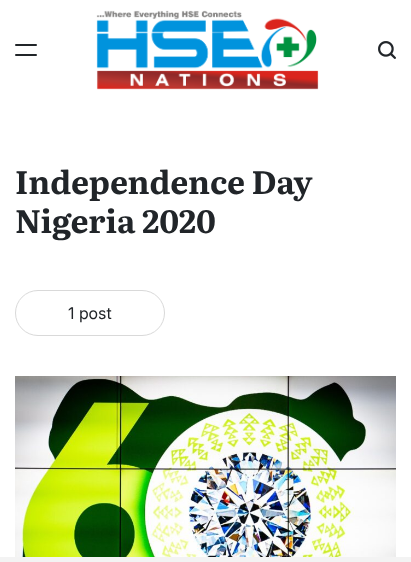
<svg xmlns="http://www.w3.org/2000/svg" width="411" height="562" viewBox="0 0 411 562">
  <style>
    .t1 { font: bold 32px Literata; fill: #212529; }
    .t2 { font: 16px Inter; fill: #212529; }
  </style>
  <rect width="100%" height="100%" fill="#fff"/>
  <rect x="15" y="44" width="22" height="2" rx="1" fill="#212529"/>
  <rect x="15" y="54" width="22" height="2" rx="1" fill="#212529"/>
  <image x="96" y="10" width="223" height="80" href="images/1.png"/>
  <image x="378" y="41" width="18" height="18" href="images/2.png"/>
  <text x="15" y="194" class="t1">Independence Day</text>
  <text x="15" y="233" class="t1">Nigeria 2020</text>
  <rect x="15.5" y="290.5" width="149" height="45" rx="22.5" fill="none" stroke="#d9d9d9"/>
  <text x="68" y="319" class="t2">1 post</text>
  <image x="15" y="376" width="381" height="181" href="images/3.png"/>
  <rect x="0" y="557" width="411" height="5" fill="#f3f3f3"/>
</svg>
